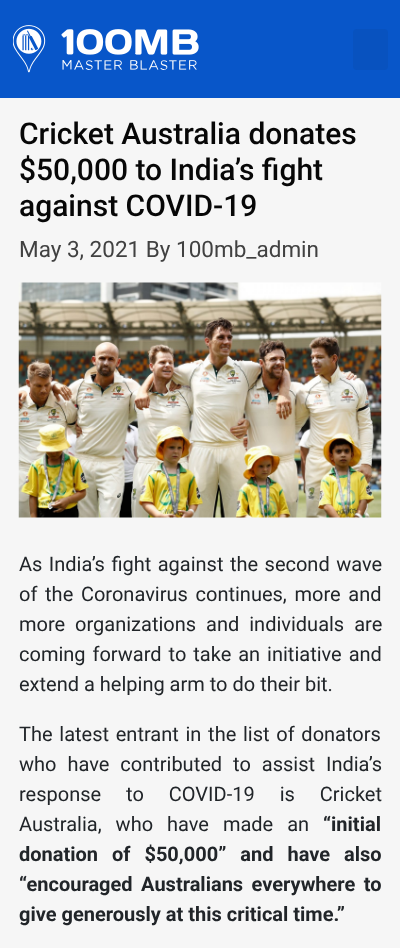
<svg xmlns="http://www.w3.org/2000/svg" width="400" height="948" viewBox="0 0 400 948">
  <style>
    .t1 { font: 500 30px Roboto; fill: #070707; }
    .t2 { font: 22.5px Roboto; fill: #414141; }
    .t3 { font: 20px Roboto; fill: #212529; }
    .t4 { font: bold 20px Roboto; fill: #212529; }
  </style>
  <rect width="100%" height="100%" fill="#f6f6f6"/>
  <rect x="0" y="0" width="400" height="98" fill="#0856c9"/>
  <image x="13" y="25" width="186" height="48" href="images/1.png"/>
  <rect x="353" y="29" width="35" height="41" rx="4" fill="#0852bf"/>
  <text x="19" y="144" class="t1">Cricket Australia donates</text>
  <text x="19" y="180" class="t1">$50,000 to India’s fight</text>
  <text x="19" y="216" class="t1">against COVID-19</text>
  <text x="19" y="257" class="t2">May 3, 2021 By 100mb_admin</text>
  <image x="18" y="282" width="364" height="236" href="images/2.png"/>
  <text x="19" y="571" word-spacing="1.5" class="t3">As India’s fight against the second wave</text>
  <text x="19" y="601" word-spacing="2.75" class="t3">of the Coronavirus continues, more and</text>
  <text x="19" y="631" word-spacing="5" class="t3">more organizations and individuals are</text>
  <text x="19" y="661" word-spacing="2" class="t3">coming forward to take an initiative and</text>
  <text x="19" y="691" class="t3">extend a helping arm to do their bit.</text>
  <text x="19" y="741" word-spacing="1.75" class="t3">The latest entrant in the list of donators</text>
  <text x="19" y="771" word-spacing="6" class="t3">who have contributed to assist India’s</text>
  <text x="19" y="801" word-spacing="20" class="t3">response to COVID-19 is Cricket</text>
  <text x="19" y="831" word-spacing="9" class="t3">Australia, who have made an</text>
  <text x="323" y="831" class="t4">“initial</text>
  <text x="19" y="861" word-spacing="9" class="t4">donation of $50,000” and have also</text>
  <text x="19" y="891" word-spacing="3.5" class="t4">“encouraged Australians everywhere to</text>
  <text x="19" y="921" class="t4">give generously at this critical time.”</text>
</svg>
